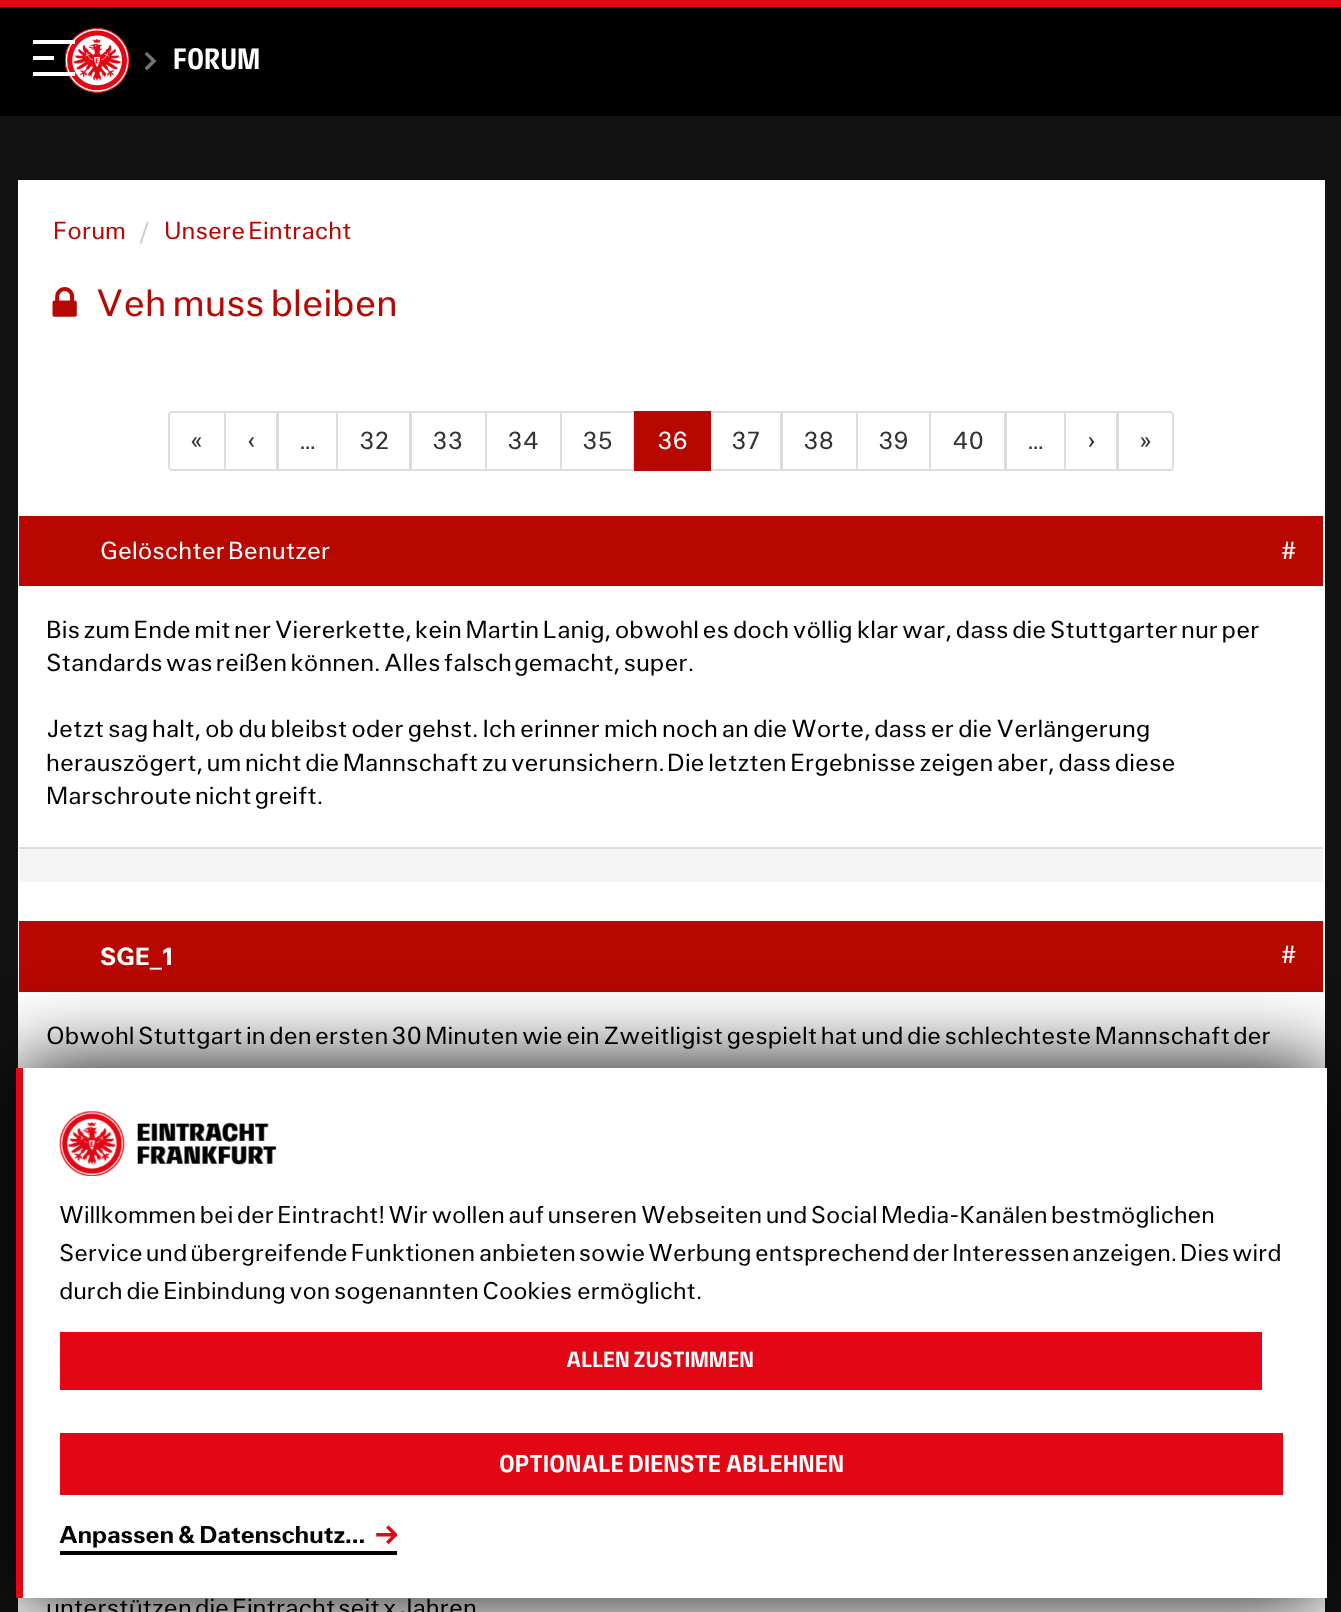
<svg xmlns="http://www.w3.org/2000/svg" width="1341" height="1612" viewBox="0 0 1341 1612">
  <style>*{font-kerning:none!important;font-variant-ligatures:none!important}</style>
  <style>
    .t1 { font: 29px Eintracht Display; fill: #fff; }
    .t2 { font: 24.5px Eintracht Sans; fill: #b70700; }
    .t3 { font: 24.5px Eintracht Sans; fill: #ccc; }
    .t4 { font: 37.75px Eintracht Sans; fill: #b70700; }
    .t5 { font: 24.5px Eintracht Sans; fill: #333; }
    .t6 { font: 24.5px Eintracht Sans; fill: #fff; }
    .t7 { font: 24.5px Eintracht Sans; fill: #000; }
    .t8 { font: bold 24.5px Eintracht Sans; fill: #fff; }
    .t9 { font: 23.98px Eintracht Sans; fill: #000; }
    .t10 { font: 21.5px 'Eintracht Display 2'; fill: #fff; }
    .t11 { font: 23.98px 'Eintracht Display 2'; fill: #fff; }
    .t12 { font: bold 23.98px Eintracht Sans; fill: #000; }
  </style>
  <rect width="100%" height="100%" fill="#121212"/>
  <rect x="0" y="7" width="1341" height="109" fill="#000"/>
  <image x="65" y="28" width="65" height="65" href="images/1.png"/>
  <rect x="33" y="40" width="42" height="4" fill="#fff"/>
  <rect x="33" y="56" width="21" height="4" fill="#fff"/>
  <rect x="33" y="72" width="42" height="4" fill="#fff"/>
  <rect x="0" y="0" width="1341" height="7" fill="#e30615"/>
  <path d="M147 70.5L144.5 68L151.5 61L144.5 54L147 52L156.5 61Z" fill="#747577"/>
  <text x="173" y="69" class="t1">Forum</text>
  <rect x="18" y="180" width="1307" height="1432" fill="#fff"/>
  <text x="53" y="239" class="t2">Forum</text>
  <text x="138" y="239" class="t3">/</text>
  <text x="164" y="239" word-spacing="-1.5" class="t2">Unsere Eintracht</text>
  <image x="52" y="287" width="25" height="30" href="images/2.png"/>
  <text x="96" y="316" word-spacing="-1" class="t4">Veh muss bleiben</text>
  <path d="M172 412H225V470H172C170.5 470 169 468.5 169 467V415C169 413.5 170.5 412 172 412Z" fill="none" stroke="#ddd" stroke-width="2"/>
  <text x="190" y="449" class="t5">«</text>
  <rect x="225" y="412" width="52" height="58" fill="none" stroke="#ddd" stroke-width="2"/>
  <text x="247" y="449" class="t5">‹</text>
  <rect x="278" y="412" width="59" height="58" fill="none" stroke="#ddd" stroke-width="2"/>
  <rect x="337" y="412" width="73" height="58" fill="none" stroke="#ddd" stroke-width="2"/>
  <text x="359" y="449" class="t5">32</text>
  <rect x="411" y="412" width="75" height="58" fill="none" stroke="#ddd" stroke-width="2"/>
  <text x="432" y="449" class="t5">33</text>
  <rect x="486" y="412" width="75" height="58" fill="none" stroke="#ddd" stroke-width="2"/>
  <text x="507" y="449" class="t5">34</text>
  <rect x="561" y="412" width="73" height="58" fill="none" stroke="#ddd" stroke-width="2"/>
  <text x="582" y="449" class="t5">35</text>
  <rect x="710" y="412" width="71" height="58" fill="none" stroke="#ddd" stroke-width="2"/>
  <rect x="634" y="411" width="77" height="60" fill="#b70700"/>
  <text x="657" y="449" class="t6">36</text>
  <text x="731" y="449" class="t5">37</text>
  <rect x="782" y="412" width="75" height="58" fill="none" stroke="#ddd" stroke-width="2"/>
  <text x="803" y="449" class="t5">38</text>
  <rect x="857" y="412" width="73" height="58" fill="none" stroke="#ddd" stroke-width="2"/>
  <text x="878" y="449" class="t5">39</text>
  <rect x="930" y="412" width="75" height="58" fill="none" stroke="#ddd" stroke-width="2"/>
  <text x="952" y="449" class="t5">40</text>
  <rect x="1006" y="412" width="59" height="58" fill="none" stroke="#ddd" stroke-width="2"/>
  <rect x="1065" y="412" width="52" height="58" fill="none" stroke="#ddd" stroke-width="2"/>
  <text x="1087" y="449" class="t5">›</text>
  <path d="M1118 412H1170C1171.5 412 1173 413.5 1173 415V467C1173 468.5 1171.5 470 1170 470H1118Z" fill="#fff" stroke="#ddd" stroke-width="2"/>
  <text x="1139" y="449" class="t5">»</text>
  <text x="300" y="449" class="t5">…</text>
  <text x="1028" y="449" class="t5">…</text>
  <rect x="19" y="516" width="1304" height="70" fill="#b70700"/>
  <text x="100" y="559" word-spacing="-1.5" class="t6">Gelöschter Benutzer</text>
  <text x="1281" y="559" class="t6">#</text>
  <text x="46" y="638" word-spacing="-1" class="t7">Bis zum Ende mit ner Viererkette,</text>
  <text x="415" y="638" word-spacing="-1" class="t7">kein Martin Lanig, obwohl es doch völlig</text>
  <text x="857" y="638" word-spacing="-1" class="t7">klar war, dass die Stuttgarter</text>
  <text x="1181" y="638" word-spacing="-1" class="t7">nur per</text>
  <text x="46" y="671" word-spacing="-1.25" class="t7">Standards was reißen können. Alles falsch</text>
  <text x="514" y="671" word-spacing="-1.25" class="t7">gemacht, super.</text>
  <text x="46" y="737" word-spacing="-0.6" class="t7">Jetzt sag halt, ob du bleibst oder gehst. Ich erinner mich noch an die Worte,</text>
  <text x="874" y="737" word-spacing="-0.6" class="t7">dass er die Verlängerung</text>
  <text x="46" y="771" word-spacing="-1" class="t7">herauszögert, um nicht die Mannschaft zu verunsichern.</text>
  <text x="667" y="771" word-spacing="-1" class="t7">Die letzten Ergebnisse zeigen</text>
  <text x="997" y="771" word-spacing="-1" class="t7">aber, dass diese</text>
  <text x="46" y="804" word-spacing="-1.5" class="t7">Marschroute nicht greift.</text>
  <path d="M19 847H1323V880C1323 881 1322 882 1321 882H21C20 882 19 881 19 880Z" fill="#f5f5f5"/>
  <rect x="19" y="847" width="1304" height="2" fill="#ddd"/>
  <rect x="19" y="921" width="1304" height="71" fill="#b70700"/>
  <text x="100" y="965" class="t8">SGE_1</text>
  <text x="1281" y="963" class="t6">#</text>
  <text x="46" y="1044" word-spacing="-1.1" class="t7">Obwohl Stuttgart in den ersten</text>
  <text x="391" y="1044" word-spacing="-1.1" class="t7">30 Minuten wie ein Zweitligist gespielt hat</text>
  <text x="861" y="1044" word-spacing="-1.1" class="t7">und die schlechteste Mannschaft</text>
  <text x="1233" y="1044" word-spacing="-1.1" class="t7">der</text>
  <text x="46" y="1616" word-spacing="-1.5" class="t7">unterstützen die Eintracht</text>
  <text x="338" y="1616" word-spacing="-1.5" class="t7">seit x Jahren</text>
  <rect x="16" y="1068" width="1311" height="530" fill="#000" filter="blur(43px)"/>
  <rect x="23" y="1068" width="1304" height="530" fill="#fff"/>
  <rect x="16" y="1068" width="7" height="530" fill="#e30615"/>
  <image x="59" y="1111" width="218" height="65" href="images/3.png"/>
  <text x="59" y="1223" word-spacing="-0.9" class="t9">Willkommen bei der Eintracht! Wir wollen auf unseren</text>
  <text x="641" y="1223" word-spacing="-0.9" class="t9">Webseiten und Social Media-Kanälen bestmöglichen</text>
  <text x="59" y="1261" word-spacing="-1.5" class="t9">Service und übergreifende Funktionen</text>
  <text x="479" y="1261" word-spacing="-1.5" class="t9">anbieten sowie Werbung</text>
  <text x="755" y="1261" word-spacing="-1.5" class="t9">entsprechend der Interessen</text>
  <text x="1072" y="1261" word-spacing="-1.5" class="t9">anzeigen. Dies wird</text>
  <text x="59" y="1299" word-spacing="-1" class="t9">durch die Einbindung von sogenannten Cookies</text>
  <text x="577" y="1299" word-spacing="-1" class="t9">ermöglicht.</text>
  <rect x="60" y="1332" width="1202" height="58" fill="#e30615"/>
  <text x="566" y="1367" class="t10">Allen zustimmen</text>
  <rect x="60" y="1433" width="1223" height="62" fill="#e30615"/>
  <text x="499" y="1472" class="t11">Optionale Dienste ablehnen</text>
  <image x="376" y="1525" width="21" height="20" href="images/4.png"/>
  <text x="59" y="1543" class="t12">Anpassen &amp; Datenschutz</text>
  <text x="345" y="1543" class="t12">...</text>
  <rect x="60" y="1551" width="337" height="4" fill="#000"/>
</svg>
